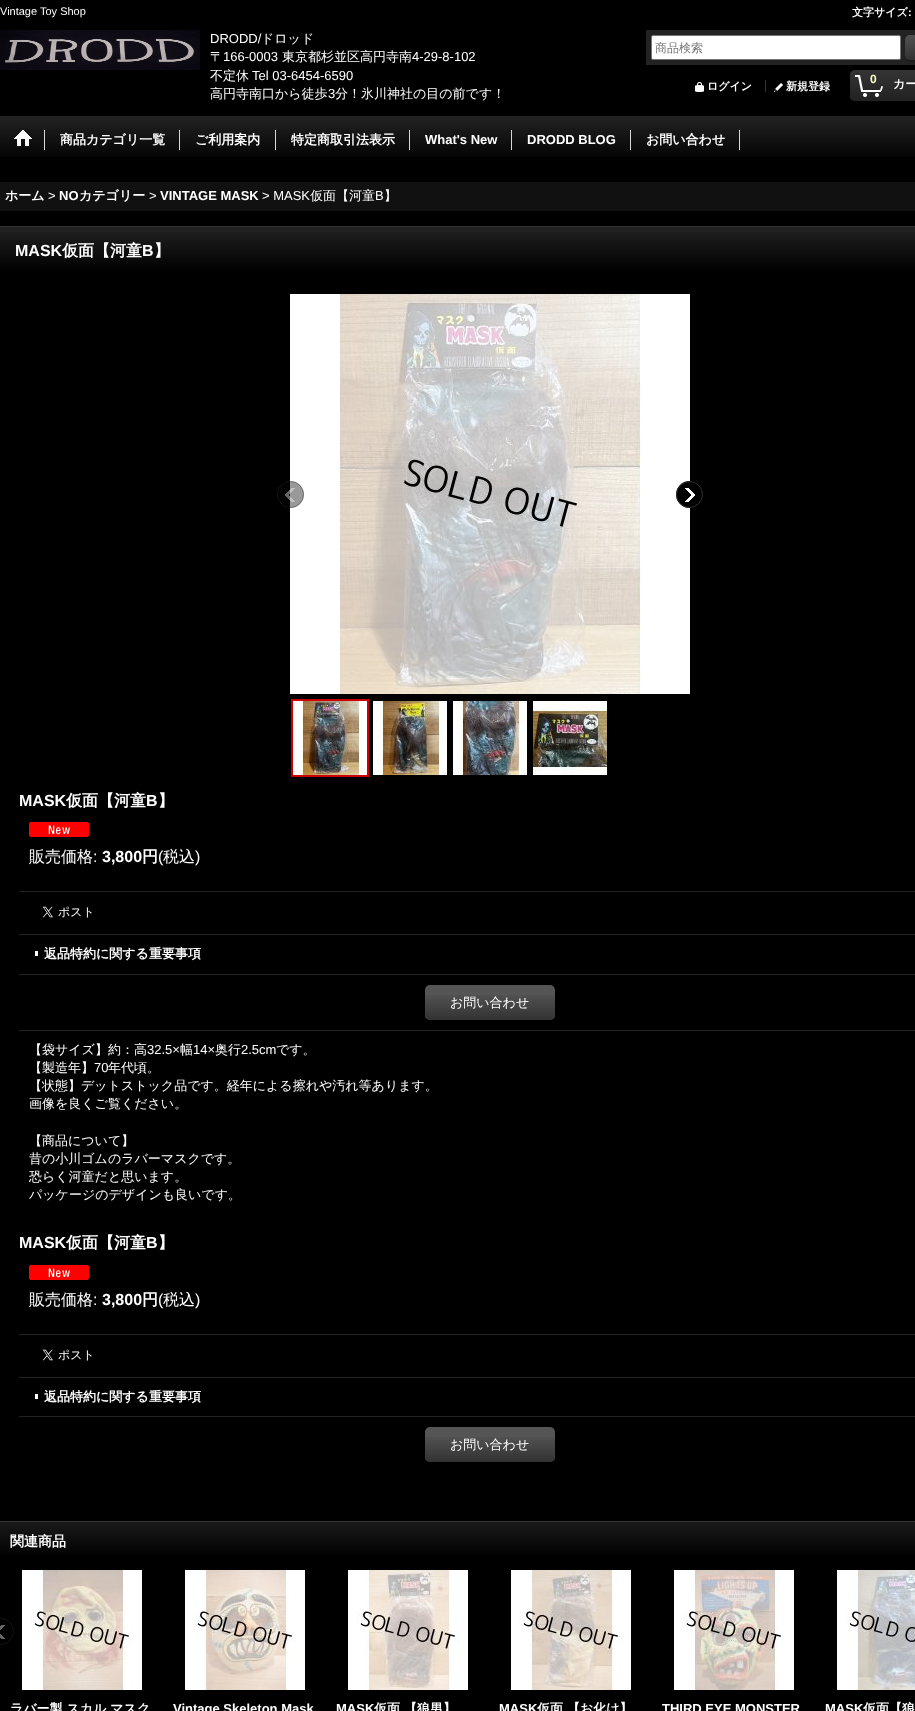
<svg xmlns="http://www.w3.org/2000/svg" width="915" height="1711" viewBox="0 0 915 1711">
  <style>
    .t1 { font: 11px Liberation Sans; fill: #fff; }
    .t2 { font: bold 11px WenQuanYi Zen Hei; fill: #fff; }
    .t3 { font: bold 11px Liberation Sans; fill: #fff; }
    .t4 { font: 13px Liberation Sans; fill: #fff; }
    .t5 { font: 500 13px WenQuanYi Zen Hei; fill: #fff; }
    .t6 { font: 500 12px WenQuanYi Zen Hei; fill: #757575; }
    .t7 { font: bold 12px Liberation Sans; fill: #ffc; }
    .t8 { font: bold 12px WenQuanYi Zen Hei; fill: #fff; }
    .t9 { font: bold 13px WenQuanYi Zen Hei; fill: #fff; }
    .t10 { font: bold 13px Liberation Sans; fill: #fff; }
    .t11 { font: bold 16px Liberation Sans; fill: #fff; }
    .t12 { font: bold 16px WenQuanYi Zen Hei; fill: #fff; }
    .t13 { font: 500 16px WenQuanYi Zen Hei; fill: #fff; }
    .t14 { font: 16px Liberation Sans; fill: #fff; }
    .t15 { font: bold 14px WenQuanYi Zen Hei; fill: #fff; }
  </style>
  <rect width="100%" height="100%" fill="#000"/>
  <text x="0" y="15" class="t1">Vintage Toy Shop</text>
  <text x="852" y="16" class="t2">文字サイズ</text>
  <text x="908" y="16" class="t3">:</text>
  <image x="0" y="30" width="200" height="40" href="images/1.png"/>
  <text x="210" y="43" class="t4">DRODD/</text>
  <text x="261" y="43" class="t5">ドロッド</text>
  <text x="210" y="61" class="t5">〒</text>
  <text x="223" y="61" class="t4">166-0003</text>
  <text x="282" y="61" class="t5">東京都杉並区高円寺南</text>
  <text x="412" y="61" class="t4">4-29-8-102</text>
  <text x="210" y="80" class="t5">不定休</text>
  <text x="252" y="80" class="t4">Tel 03-6454-6590</text>
  <text x="210" y="98" class="t5">高円寺南口から徒歩</text>
  <text x="328" y="98" class="t4">3</text>
  <text x="335" y="98" class="t5">分！氷川神社の目の前です！</text>
  <rect x="646" y="30" width="269" height="35" fill="#222"/>
  <rect x="651.5" y="35.5" width="249" height="24" rx="1.5" fill="#fff" stroke="#767676"/>
  <text x="655" y="52" class="t6">商品検索</text>
  <rect x="906" y="36" width="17" height="25" rx="5" fill="#0000004d" filter="blur(1px)"/>
  <image x="905" y="35" width="10" height="25" href="images/2.png"/>
  <image x="695" y="82" width="9" height="10" href="images/3.png"/>
  <text x="707" y="90" class="t2">ログイン</text>
  <rect x="765" y="80" width="1" height="12" fill="#333"/>
  <image x="774" y="83" width="9" height="9" href="images/4.png"/>
  <text x="786" y="90" class="t2">新規登録</text>
  <rect x="850" y="70" width="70" height="31" rx="5" fill="#333"/>
  <image x="850" y="71" width="65" height="30" href="images/5.png"/>
  <image x="855" y="75" width="28" height="22" href="images/6.png"/>
  <text x="870" y="83" class="t7">0</text>
  <text x="893" y="88" class="t8">カー</text>
  <image x="0" y="116" width="915" height="41" href="images/7.png"/>
  <rect x="44" y="130" width="1" height="20" fill="#d6d6d6"/>
  <image x="14" y="130" width="18" height="16" href="images/8.png"/>
  <rect x="179" y="130" width="1" height="20" fill="#d6d6d6"/>
  <text x="60" y="144" class="t9">商品カテゴリ一覧</text>
  <rect x="275" y="130" width="1" height="20" fill="#d6d6d6"/>
  <text x="195" y="144" class="t9">ご利用案内</text>
  <rect x="409" y="130" width="1" height="20" fill="#d6d6d6"/>
  <text x="291" y="144" class="t9">特定商取引法表示</text>
  <rect x="511" y="130" width="1" height="20" fill="#d6d6d6"/>
  <text x="425" y="144" class="t10">What's New</text>
  <rect x="630" y="130" width="1" height="20" fill="#d6d6d6"/>
  <text x="527" y="144" class="t10">DRODD BLOG</text>
  <rect x="739" y="130" width="1" height="20" fill="#d6d6d6"/>
  <text x="646" y="144" class="t9">お問い合わせ</text>
  <rect x="0" y="182" width="915" height="29" fill="#111"/>
  <text x="5" y="200" class="t9">ホーム</text>
  <text x="48" y="200" class="t4">&gt;</text>
  <text x="59" y="200" class="t10">NO</text>
  <text x="79" y="200" class="t9">カテゴリー</text>
  <text x="149" y="200" class="t4">&gt;</text>
  <text x="160" y="200" class="t10">VINTAGE MASK</text>
  <text x="262" y="200" class="t4">&gt; MASK</text>
  <text x="310" y="200" class="t5">仮面【河童</text>
  <text x="375" y="200" class="t4">B</text>
  <text x="384" y="200" class="t5">】</text>
  <rect x="0" y="227" width="915" height="5" fill="#222"/>
  <image x="0" y="232" width="915" height="43" href="images/9.png"/>
  <rect x="0" y="226" width="915" height="1" fill="#333"/>
  <text x="15" y="256" class="t11">MASK</text>
  <text x="62" y="256" class="t12">仮面【河童</text>
  <text x="142" y="256" class="t11">B</text>
  <text x="154" y="256" class="t12">】</text>
  <image x="290" y="294" width="400" height="400" href="images/10.png"/>
  <circle cx="290.5" cy="494.5" r="13.5" fill="#00000066"/>
  <image x="285" y="488" width="10" height="14" href="images/11.png"/>
  <circle cx="290.5" cy="494.5" r="13" fill="none" stroke="#33333366"/>
  <circle cx="689.5" cy="494.5" r="13.5" fill="#000"/>
  <image x="685" y="488" width="10" height="14" href="images/12.png"/>
  <circle cx="689.5" cy="494.5" r="13" fill="none" stroke="#333"/>
  <rect x="292" y="700" width="76" height="76" fill="none" stroke="#c00" stroke-width="2"/>
  <image x="293" y="701" width="74" height="74" href="images/13.png"/>
  <image x="373" y="701" width="74" height="74" href="images/14.png"/>
  <image x="453" y="701" width="74" height="74" href="images/15.png"/>
  <image x="533" y="701" width="74" height="74" href="images/16.png"/>
  <text x="19" y="806" class="t11">MASK</text>
  <text x="66" y="806" class="t12">仮面【河童</text>
  <text x="146" y="806" class="t11">B</text>
  <text x="158" y="806" class="t12">】</text>
  <image x="29" y="822" width="60" height="15" href="images/17.png"/>
  <rect x="19" y="891" width="896" height="1" fill="#222"/>
  <text x="29" y="862" class="t13">販売価格</text>
  <text x="93" y="862" class="t14">:</text>
  <text x="102" y="862" class="t11">3,800</text>
  <text x="142" y="862" class="t12">円</text>
  <text x="158" y="862" class="t14">(</text>
  <text x="163" y="862" class="t13">税込</text>
  <text x="195" y="862" class="t14">)</text>
  <rect x="19" y="934" width="896" height="1" fill="#222"/>
  <image x="42" y="906" width="50" height="12" href="images/18.png"/>
  <rect x="19" y="974" width="896" height="1" fill="#222"/>
  <text x="44" y="958" class="t9">返品特約に関する重要事項</text>
  <rect x="35" y="951" width="3" height="5" fill="#fff"/>
  <rect x="19" y="1030" width="896" height="1" fill="#222"/>
  <rect x="425" y="985" width="130" height="35" rx="5" fill="#555"/>
  <image x="425" y="995" width="130" height="25" href="images/19.png"/>
  <text x="450" y="1007" class="t5">お問い合わせ</text>
  <text x="29" y="1054" class="t5">【袋サイズ】約：高</text>
  <text x="147" y="1054" class="t4">32.5×</text>
  <text x="180" y="1054" class="t5">幅</text>
  <text x="193" y="1054" class="t4">14×</text>
  <text x="215" y="1054" class="t5">奥行</text>
  <text x="241" y="1054" class="t4">2.5cm</text>
  <text x="276" y="1054" class="t5">です。</text>
  <text x="29" y="1072" class="t5">【製造年】</text>
  <text x="94" y="1072" class="t4">70</text>
  <text x="108" y="1072" class="t5">年代頃。</text>
  <text x="29" y="1090" class="t5">【状態】デットストック品です。経年による擦れや汚れ等あります。</text>
  <text x="29" y="1108" class="t5">画像を良くご覧ください。</text>
  <text x="29" y="1145" class="t5">【商品について】</text>
  <text x="29" y="1163" class="t5">昔の小川ゴムのラバーマスクです。</text>
  <text x="29" y="1181" class="t5">恐らく河童だと思います。</text>
  <text x="29" y="1199" class="t5">パッケージのデザインも良いです。</text>
  <text x="19" y="1248" class="t11">MASK</text>
  <text x="66" y="1248" class="t12">仮面【河童</text>
  <text x="146" y="1248" class="t11">B</text>
  <text x="158" y="1248" class="t12">】</text>
  <image x="29" y="1265" width="60" height="15" href="images/17.png"/>
  <rect x="19" y="1334" width="896" height="1" fill="#222"/>
  <text x="29" y="1305" class="t13">販売価格</text>
  <text x="93" y="1305" class="t14">:</text>
  <text x="102" y="1305" class="t11">3,800</text>
  <text x="142" y="1305" class="t12">円</text>
  <text x="158" y="1305" class="t14">(</text>
  <text x="163" y="1305" class="t13">税込</text>
  <text x="195" y="1305" class="t14">)</text>
  <rect x="19" y="1377" width="896" height="1" fill="#222"/>
  <image x="42" y="1349" width="50" height="12" href="images/18.png"/>
  <rect x="19" y="1416" width="896" height="1" fill="#222"/>
  <text x="44" y="1401" class="t9">返品特約に関する重要事項</text>
  <rect x="35" y="1394" width="3" height="5" fill="#fff"/>
  <rect x="425" y="1427" width="130" height="35" rx="5" fill="#555"/>
  <image x="425" y="1437" width="130" height="25" href="images/20.png"/>
  <text x="450" y="1449" class="t5">お問い合わせ</text>
  <image x="0" y="1522" width="915" height="38" href="images/21.png"/>
  <rect x="0" y="1521" width="915" height="1" fill="#333"/>
  <text x="10" y="1546" class="t15">関連商品</text>
  <image x="0" y="1625" width="5" height="14" href="images/22.png"/>
  <circle cx="0.5" cy="1631.5" r="13" fill="none" stroke="#141414"/>
  <image x="22" y="1570" width="120" height="120" href="images/23.png"/>
  <text x="10" y="1713" class="t9">ラバー製 スカル マスク</text>
  <image x="185" y="1570" width="120" height="120" href="images/24.png"/>
  <text x="173" y="1713" class="t10">Vintage Skeleton Mask</text>
  <image x="348" y="1570" width="120" height="120" href="images/25.png"/>
  <text x="336" y="1713" class="t10">MASK</text>
  <text x="374" y="1713" class="t9">仮面 【狼男】</text>
  <image x="511" y="1570" width="120" height="120" href="images/26.png"/>
  <text x="499" y="1713" class="t10">MASK</text>
  <text x="537" y="1713" class="t9">仮面 【お化け】</text>
  <image x="674" y="1570" width="120" height="120" href="images/27.png"/>
  <text x="662" y="1713" class="t10">THIRD EYE MONSTER</text>
  <image x="837" y="1570" width="78" height="120" href="images/28.png"/>
  <text x="825" y="1713" class="t10">MASK</text>
  <text x="863" y="1713" class="t9">仮面【狼</text>
</svg>
